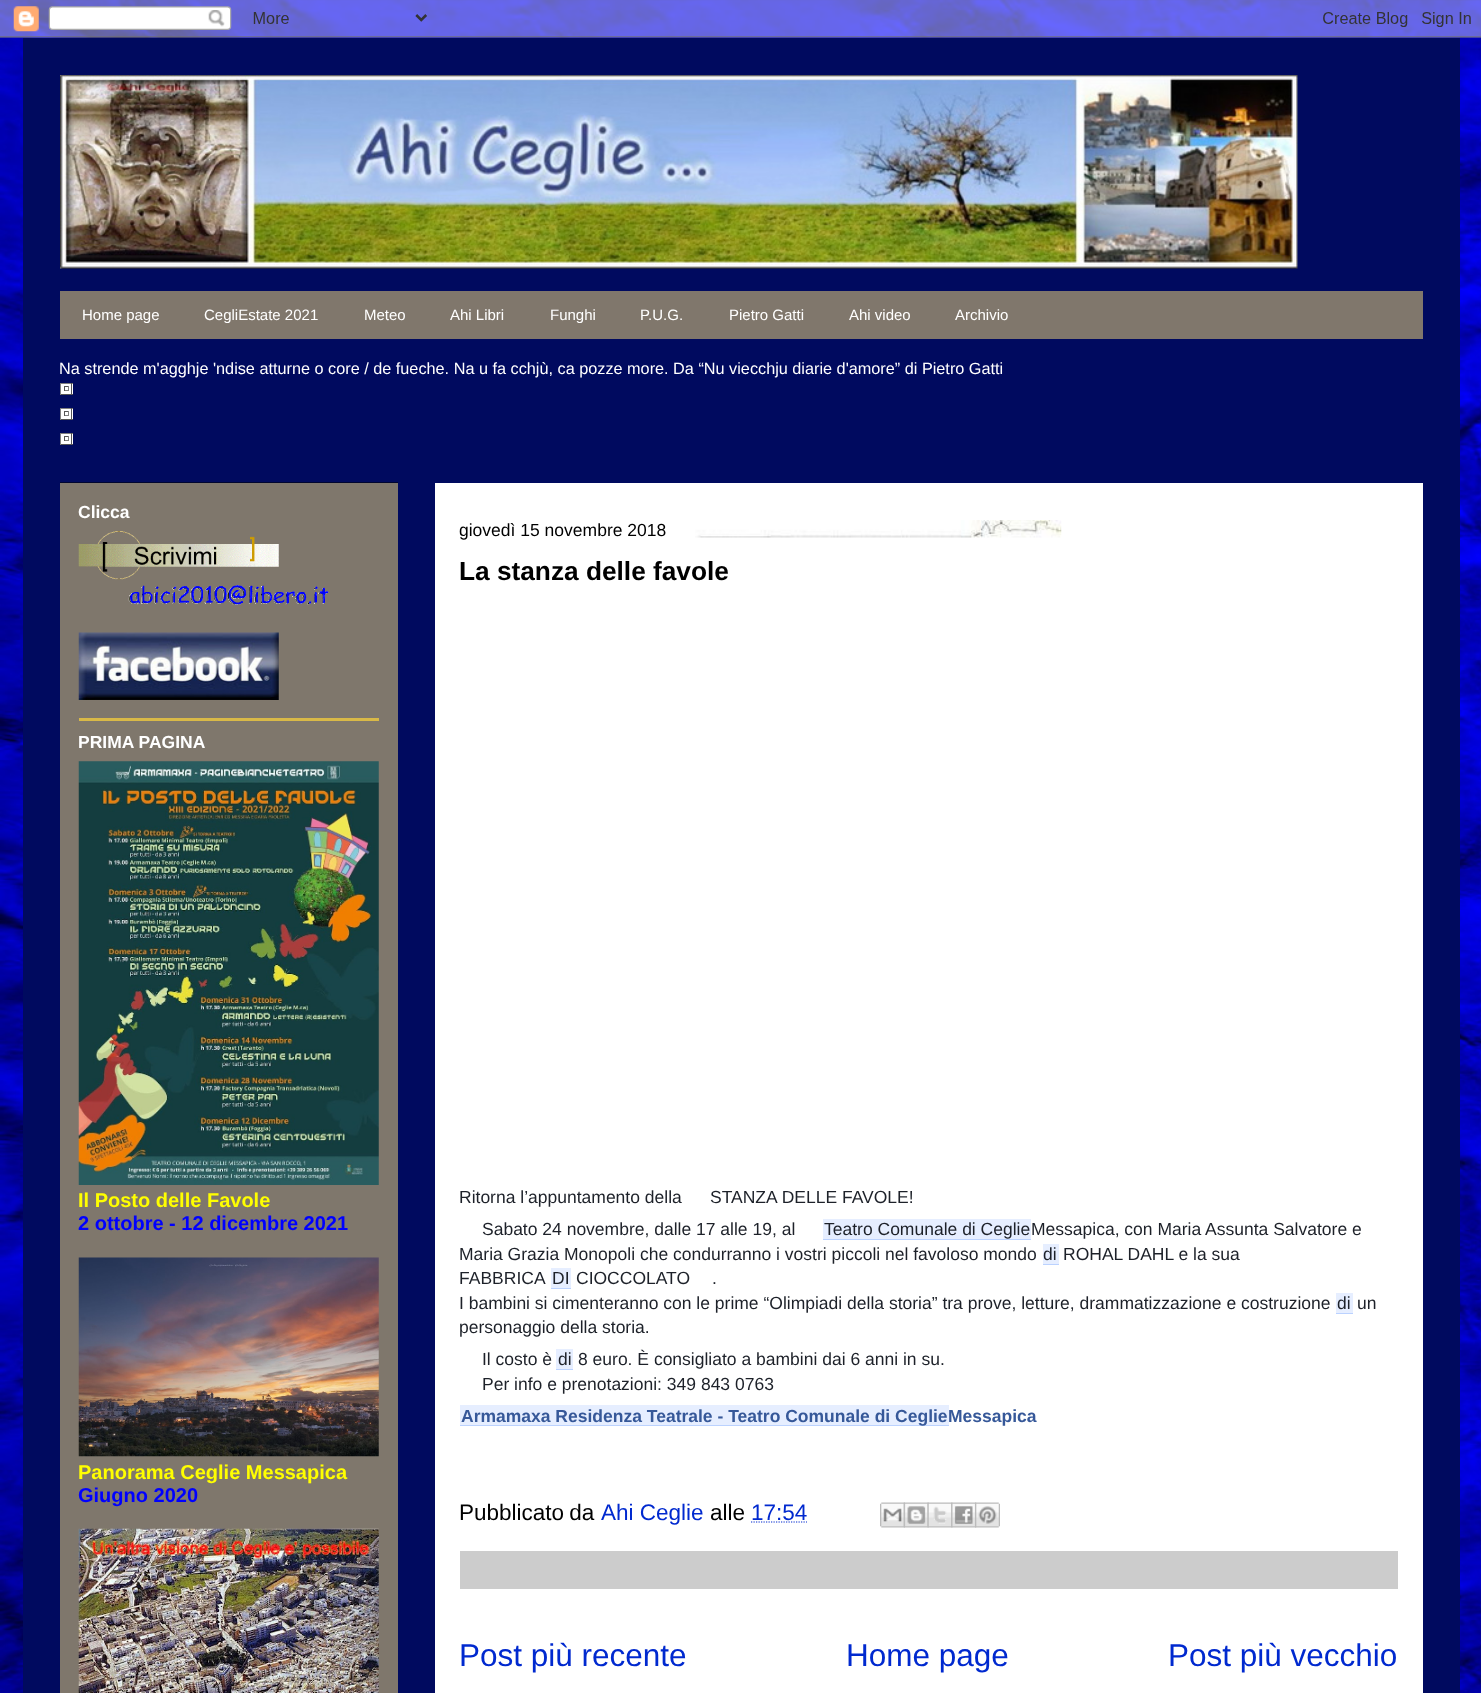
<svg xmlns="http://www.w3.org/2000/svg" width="1481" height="1693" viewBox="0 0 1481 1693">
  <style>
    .t1 { font: 15px Liberation Sans; fill: #fff; }
    .t2 { font: 16.25px Liberation Sans; fill: #fff; }
    .t3 { font: bold 17.5px Liberation Sans; fill: #fff; }
    .t4 { font: bold 20px Liberation Sans; fill: #ff0; }
    .t5 { font: bold 20px Liberation Sans; fill: #00f; }
    .t6 { font: 17.5px Liberation Sans; fill: #000; }
    .t7 { font: bold 26.25px Liberation Sans; fill: #000; }
    .t8 { font: 17.5px Liberation Sans; fill: #1d2129; }
    .t9 { font: bold 17.5px Liberation Sans; fill: #365899; }
    .t10 { font: 22.5px Liberation Sans; fill: #000; }
    .t11 { font: 22.5px Liberation Sans; fill: #0029cf; }
    .t12 { font: 31.5px Liberation Sans; fill: #0029cf; }
  </style>
  <rect width="100%" height="100%" fill="#fff"/>
  <image x="0" y="0" width="1481" height="1693" href="images/1.png"/>
  <image x="0" y="0" width="1481" height="38" href="images/2.png"/>
  <rect x="23" y="38" width="1437" height="1655" fill="#000a5f"/>
  <image x="60" y="75" width="1238" height="194" href="images/3.png"/>
  <rect x="60" y="291" width="1363" height="48" fill="#80776c"/>
  <text x="82" y="320" class="t1">Home page</text>
  <text x="204" y="320" class="t1">CegliEstate 2021</text>
  <text x="364" y="320" class="t1">Meteo</text>
  <text x="450" y="320" class="t1">Ahi Libri</text>
  <text x="550" y="320" class="t1">Funghi</text>
  <text x="640" y="320" class="t1">P.U.G.</text>
  <text x="729" y="320" class="t1">Pietro Gatti</text>
  <text x="849" y="320" class="t1">Ahi video</text>
  <text x="955" y="320" class="t1">Archivio</text>
  <text x="59" y="374" class="t2">Na strende m'agghje 'ndise atturne o core / de fueche. Na u fa cchjù, ca pozze more. Da “Nu viecchju diarie d'amore” di Pietro Gatti</text>
  <rect x="61" y="384" width="12" height="10" fill="#fff"/>
  <rect x="60" y="383" width="13" height="1" fill="#808080"/>
  <rect x="71" y="383" width="1" height="12" fill="#555"/>
  <rect x="60" y="394" width="13" height="1" fill="#555"/>
  <rect x="60" y="383" width="1" height="12" fill="#808080"/>
  <rect x="64" y="386" width="5" height="1" fill="#555"/>
  <rect x="68" y="386" width="1" height="5" fill="#808080"/>
  <rect x="64" y="390" width="5" height="1" fill="#808080"/>
  <rect x="64" y="386" width="1" height="5" fill="#555"/>
  <rect x="61" y="409" width="12" height="10" fill="#fff"/>
  <rect x="60" y="408" width="13" height="1" fill="#808080"/>
  <rect x="71" y="408" width="1" height="12" fill="#555"/>
  <rect x="60" y="419" width="13" height="1" fill="#555"/>
  <rect x="60" y="408" width="1" height="12" fill="#808080"/>
  <rect x="64" y="411" width="5" height="1" fill="#555"/>
  <rect x="68" y="411" width="1" height="5" fill="#808080"/>
  <rect x="64" y="415" width="5" height="1" fill="#808080"/>
  <rect x="64" y="411" width="1" height="5" fill="#555"/>
  <rect x="61" y="434" width="12" height="10" fill="#fff"/>
  <rect x="60" y="433" width="13" height="1" fill="#808080"/>
  <rect x="71" y="433" width="1" height="12" fill="#555"/>
  <rect x="60" y="444" width="13" height="1" fill="#555"/>
  <rect x="60" y="433" width="1" height="12" fill="#808080"/>
  <rect x="64" y="436" width="5" height="1" fill="#555"/>
  <rect x="68" y="436" width="1" height="5" fill="#808080"/>
  <rect x="64" y="440" width="5" height="1" fill="#808080"/>
  <rect x="64" y="436" width="1" height="5" fill="#555"/>
  <rect x="60" y="483" width="338" height="1210" fill="#ffeed8"/>
  <rect x="60" y="482" width="338" height="1211" fill="#00000080"/>
  <rect x="79" y="718" width="300" height="3" fill="#d9b947"/>
  <text x="78" y="518" class="t3">Clicca</text>
  <image x="78" y="531" width="201" height="49" href="images/4.png"/>
  <image x="128" y="585" width="201" height="20" href="images/5.png"/>
  <image x="78" y="632" width="201" height="68" href="images/6.png"/>
  <text x="78" y="748" class="t3">PRIMA PAGINA</text>
  <image x="78" y="761" width="301" height="424" href="images/7.png"/>
  <text x="78" y="1207" class="t4">Il Posto delle Favole</text>
  <text x="78" y="1230" class="t5">2 ottobre - 12 dicembre 2021</text>
  <image x="78" y="1257" width="301" height="200" href="images/8.png"/>
  <text x="78" y="1479" class="t4">Panorama Ceglie Messapica</text>
  <text x="78" y="1502" class="t5">Giugno 2020</text>
  <image x="78" y="1528" width="301" height="165" href="images/9.png"/>
  <rect x="435" y="483" width="988" height="1210" fill="#fff"/>
  <image x="695" y="520" width="367" height="18" href="images/10.png"/>
  <text x="459" y="536" class="t6">giovedì 15 novembre 2018</text>
  <text x="459" y="580" class="t7">La stanza delle favole</text>
  <text x="459" y="1203" class="t8">Ritorna l’appuntamento della</text>
  <text x="710" y="1203" class="t8">STANZA DELLE FAVOLE!</text>
  <text x="482" y="1235" class="t8">Sabato 24 novembre, dalle 17 alle 19, al</text>
  <rect x="823" y="1219" width="208" height="20" fill="#e6eeff"/>
  <text x="824" y="1235" class="t8">Teatro Comunale di Ceglie</text>
  <rect x="823" y="1239" width="208" height="1" fill="#bbd2ff"/>
  <text x="1031" y="1235" class="t8">Messapica, con Maria Assunta Salvatore e</text>
  <text x="459" y="1260" class="t8">Maria Grazia Monopoli che condurranno i vostri piccoli nel favoloso mondo</text>
  <rect x="1043" y="1244" width="16" height="20" fill="#e6eeff"/>
  <text x="1043" y="1260" class="t8">di</text>
  <rect x="1043" y="1264" width="16" height="1" fill="#bbd2ff"/>
  <text x="1063" y="1260" class="t8">ROHAL DAHL e la sua</text>
  <text x="459" y="1284" class="t8">FABBRICA</text>
  <rect x="551" y="1268" width="20" height="20" fill="#e6eeff"/>
  <text x="552" y="1284" class="t8">DI</text>
  <rect x="551" y="1288" width="20" height="1" fill="#bbd2ff"/>
  <text x="576" y="1284" class="t8">CIOCCOLATO</text>
  <text x="712" y="1284" class="t8">.</text>
  <text x="459" y="1309" class="t8">I bambini si cimenteranno con le prime “Olimpiadi della storia” tra prove, letture, drammatizzazione e costruzione</text>
  <rect x="1336" y="1293" width="17" height="20" fill="#e6eeff"/>
  <text x="1337" y="1309" class="t8">di</text>
  <rect x="1336" y="1313" width="17" height="1" fill="#bbd2ff"/>
  <text x="1357" y="1309" class="t8">un</text>
  <text x="459" y="1333" class="t8">personaggio della storia.</text>
  <text x="482" y="1365" class="t8">Il costo è</text>
  <rect x="556" y="1349" width="17" height="20" fill="#e6eeff"/>
  <text x="558" y="1365" class="t8">di</text>
  <rect x="556" y="1369" width="17" height="1" fill="#bbd2ff"/>
  <text x="578" y="1365" class="t8">8 euro. È consigliato a bambini dai 6 anni in su.</text>
  <text x="482" y="1390" class="t8">Per info e prenotazioni: 349 843 0763</text>
  <rect x="460" y="1405" width="489" height="20" fill="#e6eeff"/>
  <rect x="460" y="1425" width="489" height="1" fill="#bbd2ff"/>
  <text x="461" y="1422" class="t9">Armamaxa Residenza Teatrale - Teatro Comunale di Ceglie</text>
  <text x="948" y="1422" class="t9">Messapica</text>
  <text x="459" y="1520" word-spacing="-1" class="t10">Pubblicato da</text>
  <text x="601" y="1520" class="t11">Ahi Ceglie</text>
  <text x="710" y="1520" class="t10">alle</text>
  <text x="751" y="1520" class="t11">17:54</text>
  <path d="M751 1522H807" fill="none" stroke="#0029cf" stroke-width="1.2" stroke-dasharray="1.25 1.25"/>
  <image x="880" y="1502" width="25" height="26" href="images/11.png"/>
  <image x="903" y="1502" width="26" height="26" href="images/12.png"/>
  <image x="927" y="1502" width="26" height="26" href="images/13.png"/>
  <image x="951" y="1502" width="26" height="26" href="images/14.png"/>
  <image x="975" y="1502" width="25" height="26" href="images/15.png"/>
  <rect x="460" y="1551" width="938" height="38" fill="#ccc"/>
  <text x="459" y="1666" class="t12">Post più recente</text>
  <text x="846" y="1666" class="t12">Home page</text>
  <text x="1168" y="1666" class="t12">Post più vecchio</text>
</svg>
